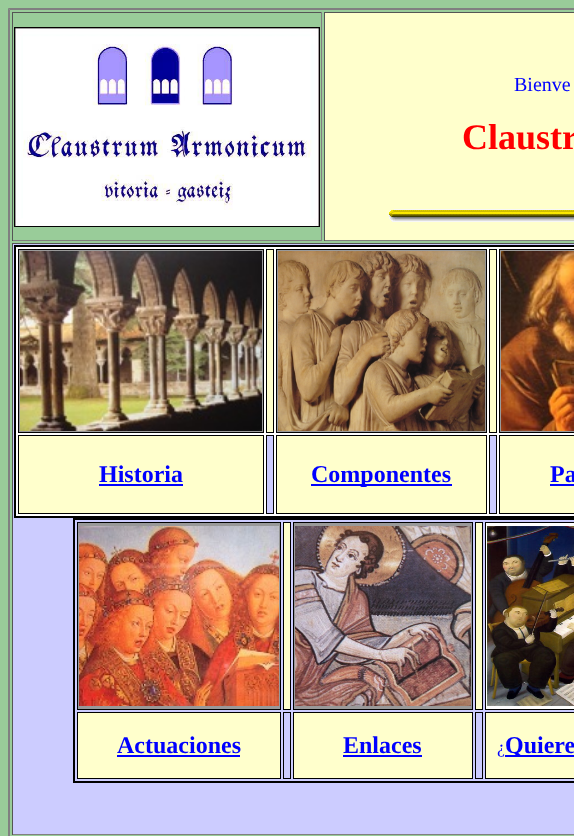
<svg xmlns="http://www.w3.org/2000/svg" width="574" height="836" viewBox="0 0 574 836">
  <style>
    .t1 { font: 20px Liberation Serif; fill: #00f; }
    .t2 { font: bold 36px Liberation Serif; fill: #f00; }
    .t3 { font: bold 24px Liberation Serif; fill: #00f; }
    .t4 { font: 18px Liberation Serif; fill: #00f; }
  </style>
  <rect width="100%" height="100%" fill="#9c9"/>
  <path d="M8 8H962L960 10H10Z" fill="#808080"/>
  <path d="M8 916V8L10 10V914Z" fill="#808080"/>
  <rect x="12" y="12" width="310" height="1" fill="#555"/>
  <rect x="321" y="12" width="1" height="229" fill="#808080"/>
  <rect x="12" y="240" width="310" height="1" fill="#808080"/>
  <rect x="12" y="12" width="1" height="229" fill="#555"/>
  <image x="14" y="27" width="306" height="200" href="images/1.png"/>
  <rect x="325" y="13" width="249" height="227" fill="#ffc"/>
  <rect x="324" y="12" width="250" height="1" fill="#555"/>
  <rect x="324" y="240" width="250" height="1" fill="#808080"/>
  <rect x="324" y="12" width="1" height="229" fill="#555"/>
  <text x="514" y="91" class="t1">Bienve</text>
  <text x="462" y="149" class="t2">Claustr</text>
  <image x="388" y="209" width="186" height="13" href="images/2.png"/>
  <rect x="13" y="244" width="561" height="590" fill="#ccf"/>
  <rect x="12" y="243" width="562" height="1" fill="#555"/>
  <rect x="12" y="834" width="562" height="1" fill="#808080"/>
  <rect x="12" y="243" width="1" height="592" fill="#555"/>
  <rect x="15" y="246" width="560" height="271" fill="#fff" stroke="#000" stroke-width="2"/>
  <rect x="18.5" y="249.5" width="245" height="183" fill="#999" stroke="#000"/>
  <image x="20" y="251" width="242" height="180" href="images/3.png"/>
  <rect x="266.5" y="249.5" width="7" height="183" fill="#ffc" stroke="#000"/>
  <rect x="276.5" y="249.5" width="210" height="183" fill="#999" stroke="#000"/>
  <image x="278" y="251" width="207" height="180" href="images/4.png"/>
  <rect x="489.5" y="249.5" width="7" height="183" fill="#ffc" stroke="#000"/>
  <rect x="499.5" y="249.5" width="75" height="183" fill="#999" stroke="#000"/>
  <image x="501" y="251" width="73" height="180" href="images/5.png"/>
  <rect x="18.5" y="435.5" width="245" height="78" fill="#ffc" stroke="#000"/>
  <text x="99" y="482" class="t3">Historia</text>
  <rect x="99" y="484" width="84" height="2" fill="#00f"/>
  <rect x="266.5" y="435.5" width="7" height="78" fill="#ccf" stroke="#000"/>
  <rect x="276.5" y="435.5" width="210" height="78" fill="#ffc" stroke="#000"/>
  <rect x="311" y="484" width="141" height="2" fill="#00f"/>
  <text x="311" y="482" class="t3">Componentes</text>
  <rect x="489.5" y="435.5" width="7" height="78" fill="#ccf" stroke="#000"/>
  <rect x="499.5" y="435.5" width="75" height="78" fill="#ffc" stroke="#000"/>
  <text x="550" y="482" class="t3">Pa</text>
  <rect x="550" y="484" width="24" height="2" fill="#00f"/>
  <rect x="74" y="519" width="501" height="263" fill="none" stroke="#000" stroke-width="2"/>
  <rect x="77.5" y="522.5" width="203" height="187" fill="#999" stroke="#000"/>
  <image x="79" y="526" width="200" height="180" href="images/6.png"/>
  <rect x="283.5" y="522.5" width="7" height="187" fill="#ffc" stroke="#000"/>
  <rect x="293.5" y="522.5" width="179" height="187" fill="#999" stroke="#000"/>
  <image x="295" y="526" width="176" height="180" href="images/7.png"/>
  <rect x="475.5" y="522.5" width="7" height="187" fill="#ffc" stroke="#000"/>
  <rect x="485.5" y="522.5" width="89" height="187" fill="#fff" stroke="#000"/>
  <image x="487" y="526" width="87" height="180" href="images/8.png"/>
  <rect x="77.5" y="712.5" width="203" height="66" fill="#ffc" stroke="#000"/>
  <text x="117" y="753" class="t3">Actuaciones</text>
  <rect x="117" y="755" width="123" height="2" fill="#00f"/>
  <rect x="283.5" y="712.5" width="7" height="66" fill="none" stroke="#000"/>
  <rect x="293.5" y="712.5" width="179" height="66" fill="#ffc" stroke="#000"/>
  <text x="343" y="753" class="t3">Enlaces</text>
  <rect x="343" y="755" width="79" height="2" fill="#00f"/>
  <rect x="475.5" y="712.5" width="7" height="66" fill="none" stroke="#000"/>
  <rect x="485.5" y="712.5" width="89" height="66" fill="#ffc" stroke="#000"/>
  <text x="497" y="753" class="t4">¿</text>
  <rect x="505" y="755" width="69" height="2" fill="#00f"/>
  <text x="505" y="753" class="t3">Quiere</text>
</svg>
